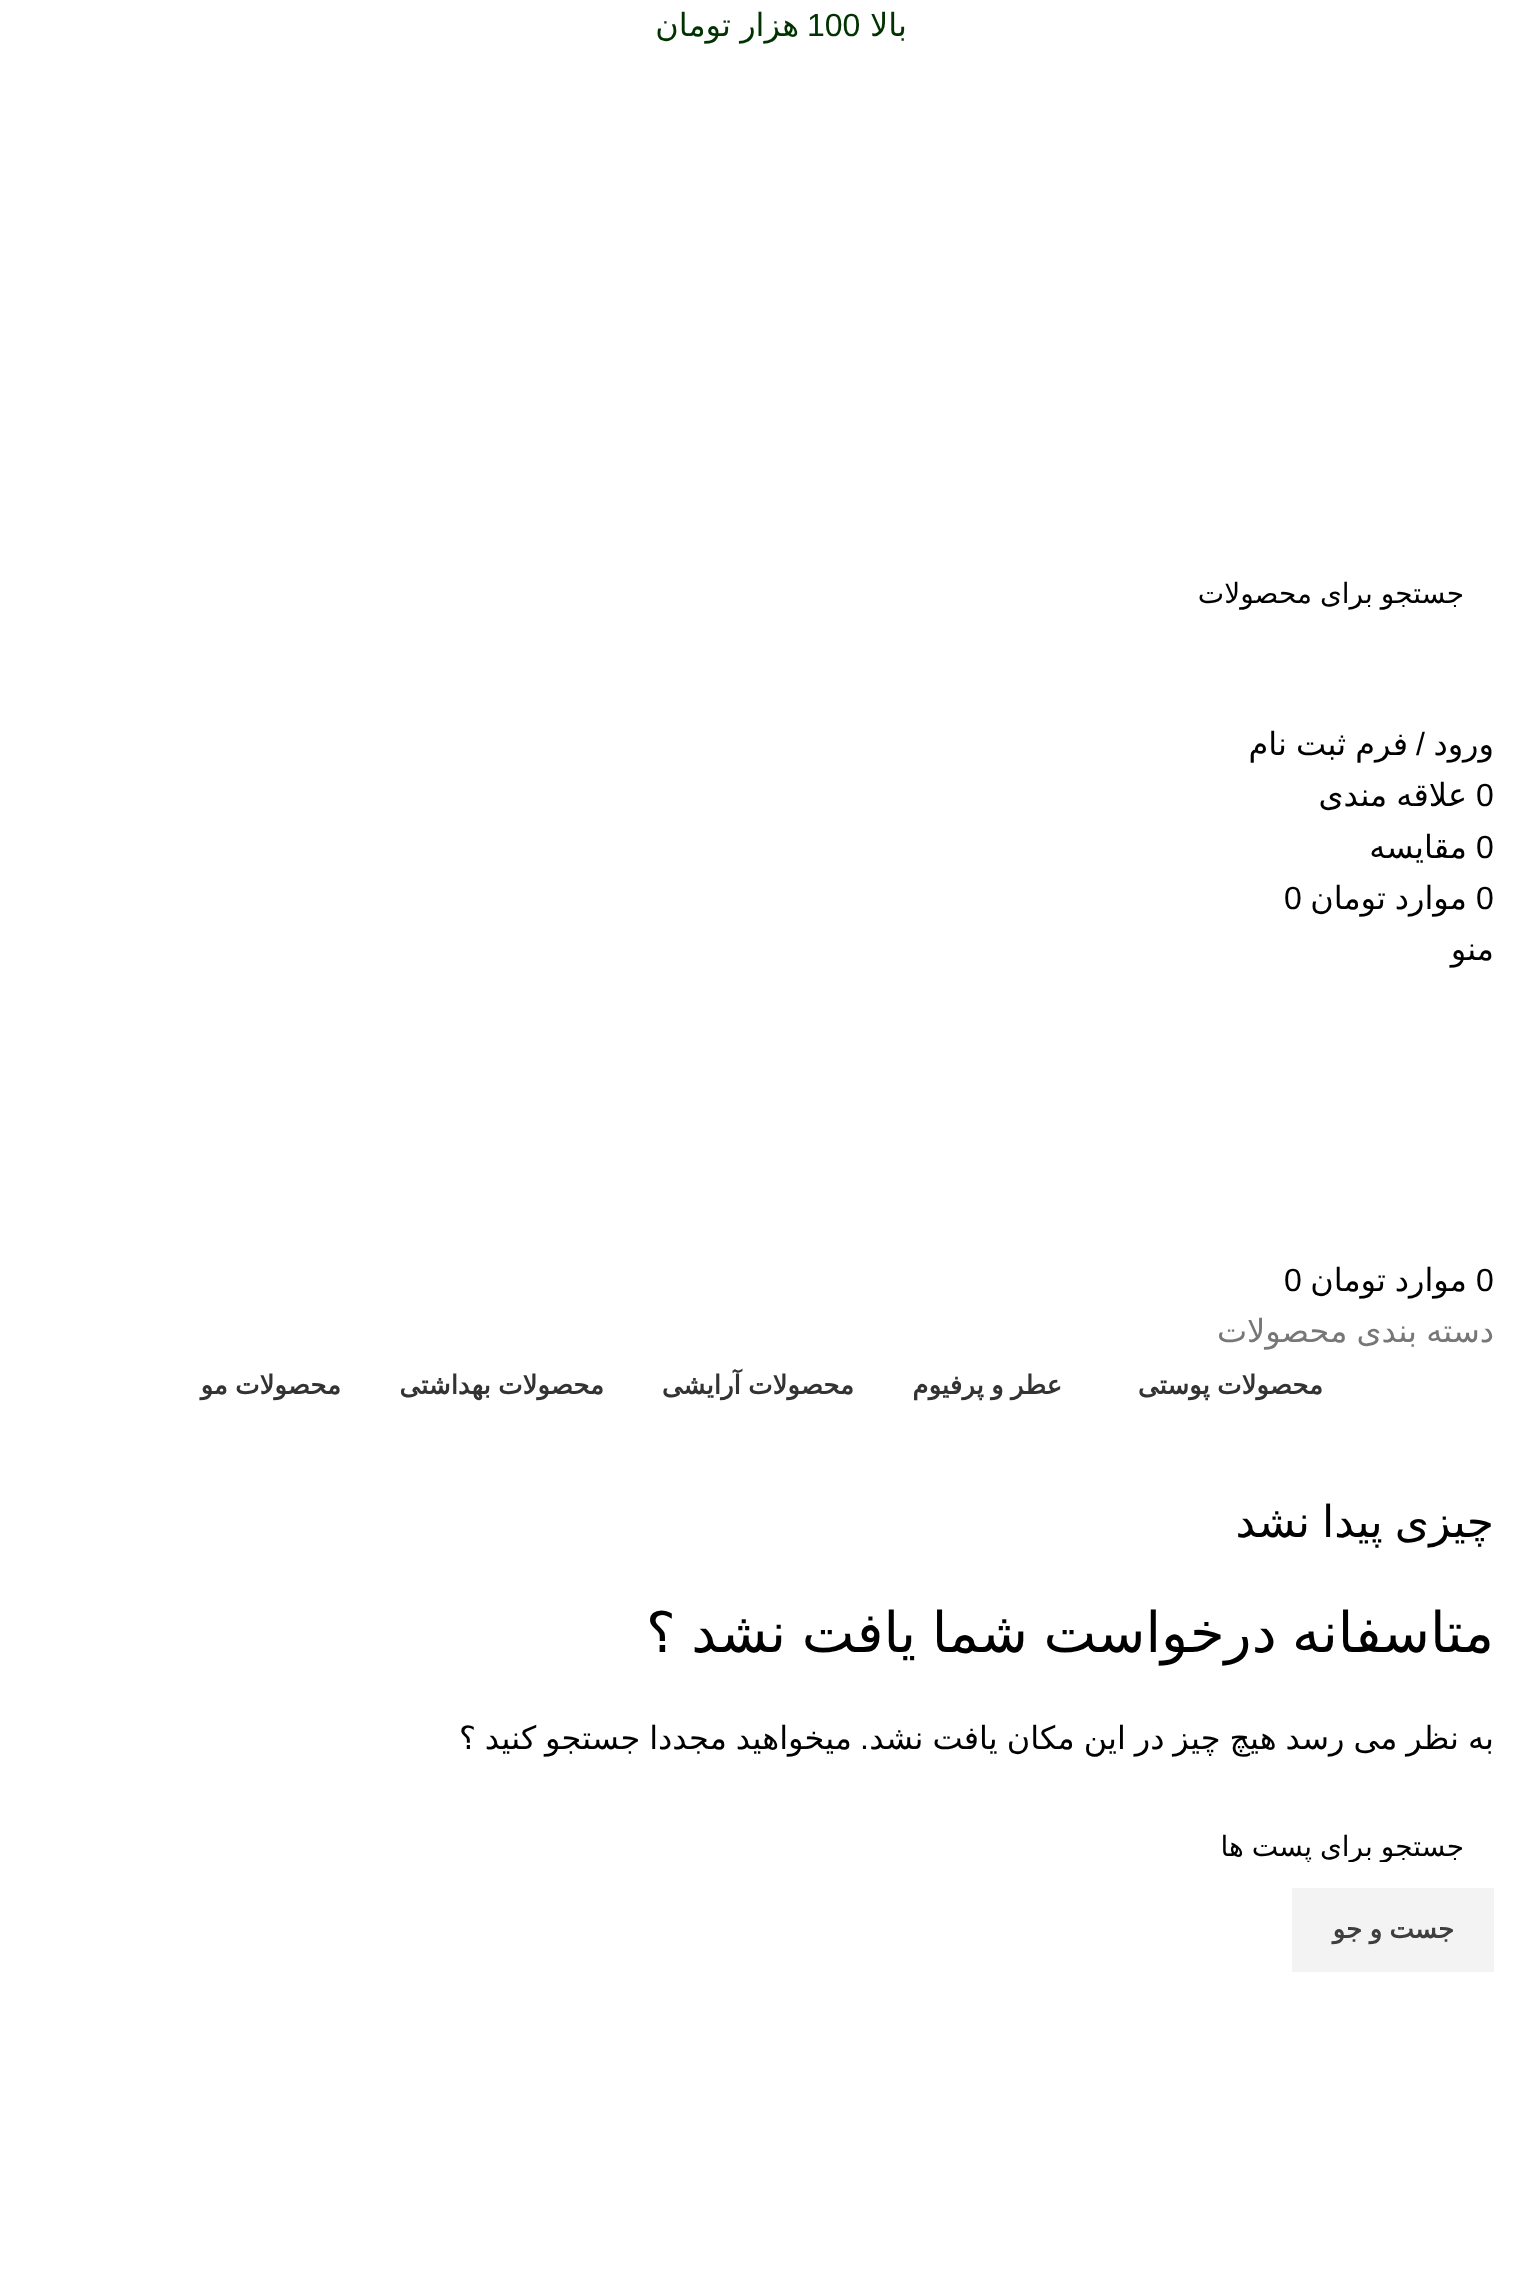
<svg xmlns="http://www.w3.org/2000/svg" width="1524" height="2289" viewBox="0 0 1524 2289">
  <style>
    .t1 { font: 32px DejaVu Sans; direction: rtl; fill: #030; }
    .t2 { font: 32px Liberation Sans; fill: #030; }
    .t3 { font: 28px DejaVu Sans; direction: rtl; fill: #000; }
    .t4 { font: 32px DejaVu Sans; direction: rtl; fill: #000; }
    .t5 { font: 32px Liberation Sans; direction: rtl; fill: #000; }
    .t6 { font: 32px Liberation Sans; fill: #000; }
    .t7 { font: 32px DejaVu Sans; direction: rtl; fill: #777; }
    .t8 { font: bold 26px DejaVu Sans; direction: rtl; fill: #333; }
    .t9 { font: 44px DejaVu Sans; direction: rtl; fill: #000; }
    .t10 { font: 56px DejaVu Sans; direction: rtl; fill: #000; }
    .t11 { font: bold 26px DejaVu Sans; direction: rtl; fill: #3e3e3e; }
  </style>
  <defs>
    <clipPath id="clip1"><rect x="60" y="1830" width="1404" height="32"/></clipPath>
  </defs>
  <rect width="100%" height="100%" fill="#fff"/>
  <text x="907" y="36" class="t1">بالا</text>
  <text x="807" y="36" class="t2">100</text>
  <text x="799" y="36" word-spacing="-1" class="t1">هزار تومان</text>
  <text x="1464" y="603" word-spacing="-1" class="t3">جستجو برای محصولات</text>
  <text x="1494" y="755" class="t4">ورود</text>
  <text x="1425" y="755" class="t5">/</text>
  <text x="1408" y="755" word-spacing="-1" class="t4">فرم ثبت نام</text>
  <text x="1476" y="806" class="t6">0</text>
  <text x="1467" y="806" word-spacing="-1" class="t4">علاقه مندی</text>
  <text x="1476" y="858" class="t6">0</text>
  <text x="1467" y="858" class="t4">مقایسه</text>
  <text x="1476" y="909" class="t6">0</text>
  <text x="1467" y="909" class="t4">موارد</text>
  <text x="1386" y="909" class="t4">تومان</text>
  <text x="1284" y="909" class="t6">0</text>
  <text x="1494" y="960" class="t4">منو</text>
  <text x="1476" y="1291" class="t6">0</text>
  <text x="1467" y="1291" class="t4">موارد</text>
  <text x="1386" y="1291" class="t4">تومان</text>
  <text x="1284" y="1291" class="t6">0</text>
  <text x="1494" y="1342" word-spacing="-1" class="t7">دسته بندی محصولات</text>
  <text x="1323" y="1394" word-spacing="-1" class="t8">محصولات پوستی</text>
  <text x="1062" y="1394" word-spacing="-1" class="t8">عطر و پرفیوم</text>
  <text x="854" y="1394" word-spacing="-1" class="t8">محصولات آرایشی</text>
  <text x="604" y="1394" word-spacing="-1" class="t8">محصولات بهداشتی</text>
  <text x="341" y="1394" word-spacing="-1" class="t8">محصولات مو</text>
  <text x="1494" y="1537" word-spacing="-2" class="t9">چیزی پیدا نشد</text>
  <text x="1494" y="1652" word-spacing="-2.25" class="t10">متاسفانه درخواست شما یافت نشد ؟</text>
  <text x="1494" y="1749" word-spacing="-1.25" class="t4">به نظر می رسد هیچ چیز در این مکان یافت نشد</text>
  <text x="869" y="1749" class="t5">.</text>
  <text x="852" y="1749" word-spacing="-1.25" class="t4">میخواهید مجددا جستجو کنید ؟</text>
  <g clip-path="url(#clip1)">
    <text x="1464" y="1856" word-spacing="-1" class="t3">جستجو برای پست ها</text>
  </g>
  <rect x="1292" y="1888" width="202" height="84" fill="#f3f3f3"/>
  <text x="1454" y="1938" word-spacing="-1" class="t11">جست و جو</text>
</svg>
